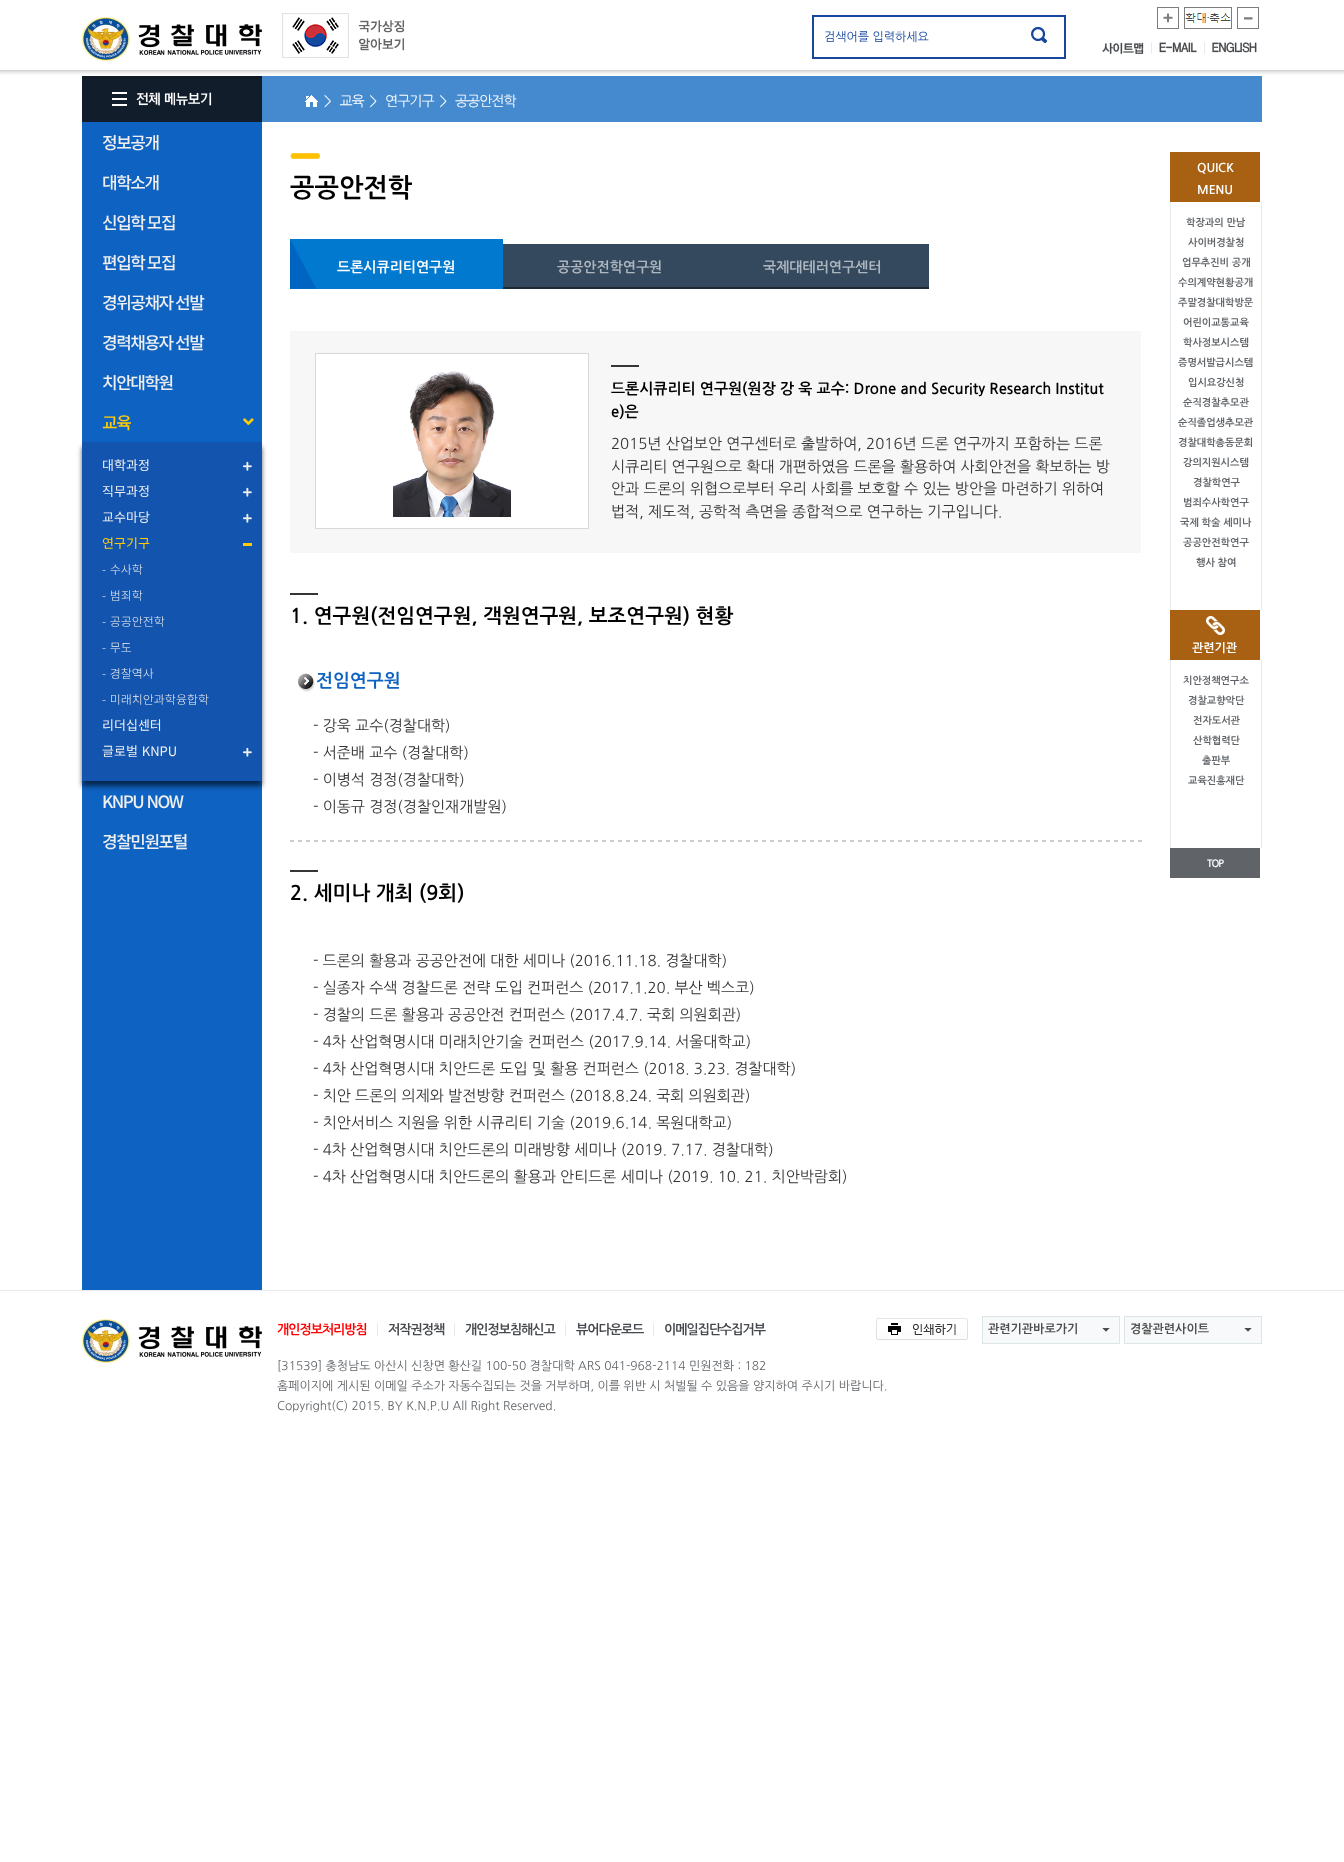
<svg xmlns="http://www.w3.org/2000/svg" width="1344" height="1862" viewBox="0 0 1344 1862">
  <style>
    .t1 { font: 12px NanumGothic; fill: #17469e; }
    .t2 { font: 500 17px Noto Sans KR; letter-spacing: -1.5px; fill: #efefef; }
    .t3 { font: 500 17px Noto Sans KR; letter-spacing: -1.5px; fill: #ffcb08; }
    .t4 { font: 13px Noto Sans KR; fill: #efefef; }
    .t5 { font: 13px Noto Sans KR; fill: #ffcb08; }
    .t6 { font: 300 12px Noto Sans KR; fill: #efefef; }
    .t7 { font: 14px 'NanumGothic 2'; letter-spacing: -1px; fill: #fff; }
    .t8 { font: bold 26px NanumGothic; fill: #000; }
    .t9 { font: bold 14px NanumGothic; fill: #fff; }
    .t10 { font: bold 14px NanumGothic; fill: #aeb6bf; }
    .t11 { font: bold 15px NanumGothic; fill: #000; }
    .t12 { font: 15px 'NanumGothic 2'; fill: #333; }
    .t13 { font: bold 20px NanumGothic; fill: #000; }
    .t14 { font: bold 18px NanumGothic; fill: #0e62c1; }
    .t15 { font: bold 12px 'NanumGothic 2'; fill: #fff; }
    .t16 { font: bold 10px 'NanumGothic 2'; fill: #606468; }
    .t17 { font: bold 10px 'NanumGothic 2'; letter-spacing: -1px; fill: #fff; }
    .t18 { font: bold 13px 'NanumGothic 2'; letter-spacing: -1px; fill: #f00; }
    .t19 { font: bold 13px 'NanumGothic 2'; letter-spacing: -1px; fill: #46494d; }
    .t20 { font: 12px NanumGothic; fill: #606468; }
    .t21 { font: bold 12px 'NanumGothic 2'; fill: #4e4e4e; }
  </style>
  <rect width="100%" height="100%" fill="#fff"/>
  <image x="0" y="70" width="1344" height="5" href="images/1.png"/>
  <image x="82" y="17" width="180" height="44" href="images/2.png"/>
  <image x="282" y="13" width="123" height="45" href="images/3.png"/>
  <rect x="813" y="16" width="252" height="42" fill="none" stroke="#17469e" stroke-width="2"/>
  <text x="824" y="41" class="t1">검색어를 입력하세요</text>
  <image x="1031" y="26" width="17" height="18" href="images/4.png"/>
  <image x="1157" y="7" width="22" height="22" href="images/5.png"/>
  <image x="1184" y="7" width="48" height="22" href="images/6.png"/>
  <image x="1237" y="7" width="22" height="22" href="images/7.png"/>
  <image x="1102" y="42" width="42" height="12" href="images/8.png"/>
  <rect x="1151" y="42" width="1" height="12" fill="#e7eaef"/>
  <image x="1159" y="42" width="38" height="11" href="images/9.png"/>
  <rect x="1204" y="42" width="1" height="12" fill="#e7eaef"/>
  <image x="1212" y="42" width="45" height="11" href="images/10.png"/>
  <rect x="82" y="122" width="180" height="1168" fill="#0e62c1"/>
  <image x="82" y="76" width="180" height="46" href="images/11.png"/>
  <text x="102" y="149" class="t2">정보공개</text>
  <text x="102" y="189" class="t2">대학소개</text>
  <text x="102" y="229" class="t2">신입학 모집</text>
  <text x="102" y="269" class="t2">편입학 모집</text>
  <text x="102" y="309" class="t2">경위공채자 선발</text>
  <text x="102" y="349" class="t2">경력채용자 선발</text>
  <text x="102" y="389" class="t2">치안대학원</text>
  <text x="102" y="429" class="t3">교육</text>
  <image x="243" y="418" width="11" height="7" href="images/12.png"/>
  <rect x="82" y="447" width="180" height="339" fill="#00000099" filter="blur(2.5px)"/>
  <rect x="82" y="442" width="180" height="339" fill="#1354af"/>
  <text x="102" y="470" class="t4">대학과정</text>
  <image x="243" y="461" width="9" height="10" href="images/13.png"/>
  <text x="102" y="496" class="t4">직무과정</text>
  <image x="243" y="487" width="9" height="10" href="images/13.png"/>
  <text x="102" y="522" class="t4">교수마당</text>
  <image x="243" y="513" width="9" height="10" href="images/13.png"/>
  <text x="102" y="548" class="t5">연구기구</text>
  <rect x="243" y="543" width="9" height="3" fill="#ffcb08"/>
  <text x="102" y="574" word-spacing="1" class="t6">- 수사학</text>
  <text x="102" y="600" word-spacing="1" class="t6">- 범죄학</text>
  <text x="102" y="626" word-spacing="1" class="t6">- 공공안전학</text>
  <text x="102" y="652" word-spacing="1" class="t6">- 무도</text>
  <text x="102" y="678" word-spacing="1" class="t6">- 경찰역사</text>
  <text x="102" y="704" word-spacing="1" class="t6">- 미래치안과학융합학</text>
  <text x="102" y="730" class="t4">리더십센터</text>
  <text x="102" y="756" word-spacing="1" class="t4">글로벌 KNPU</text>
  <image x="243" y="747" width="9" height="10" href="images/13.png"/>
  <text x="102" y="808" word-spacing="1" class="t2">KNPU NOW</text>
  <text x="102" y="848" class="t2">경찰민원포털</text>
  <rect x="262" y="76" width="1000" height="46" fill="#458acf"/>
  <image x="305" y="95" width="13" height="12" href="images/14.png"/>
  <text x="324" y="106" class="t7" xml:space="preserve">&gt;   교육  &gt;   연구기구  &gt;   공공안전학</text>
  <image x="290" y="153" width="30" height="6" href="images/15.png"/>
  <text x="290" y="197" class="t8">공공안전학</text>
  <rect x="290" y="239" width="213" height="50" fill="#0079cf"/>
  <image x="290" y="239" width="26" height="50" href="images/16.png"/>
  <text x="337" y="272" class="t9">드론시큐리티연구원</text>
  <image x="503" y="244" width="213" height="45" href="images/17.png"/>
  <text x="557" y="272" class="t10">공공안전학연구원</text>
  <image x="716" y="244" width="213" height="45" href="images/17.png"/>
  <text x="763" y="272" class="t10">국제대테러연구센터</text>
  <rect x="290" y="331" width="851" height="222" fill="#f7f7f7"/>
  <rect x="315.5" y="353.5" width="273" height="175" fill="#fff" stroke="#d8d8d8"/>
  <image x="393" y="371" width="118" height="146" href="images/18.png"/>
  <rect x="611" y="365" width="28" height="2" fill="#363636"/>
  <text x="611" y="394" class="t11">드론시큐리티 연구원(원장 강 욱 교수: Drone and Security Research Institut</text>
  <text x="611" y="417" class="t11">e)은</text>
  <text x="611" y="449" class="t12">2015년 산업보안 연구센터로 출발하여, 2016년 드론 연구까지 포함하는 드론</text>
  <text x="611" y="472" class="t12">시큐리티 연구원으로 확대 개편하였음 드론을 활용하여 사회안전을 확보하는 방</text>
  <text x="611" y="494" class="t12">안과 드론의 위협으로부터 우리 사회를 보호할 수 있는 방안을 마련하기 위하여</text>
  <text x="611" y="517" class="t12">법적, 제도적, 공학적 측면을 종합적으로 연구하는 기구입니다.</text>
  <rect x="290" y="593" width="28" height="2" fill="#363636"/>
  <text x="290" y="623" class="t13">1. 연구원(전임연구원, 객원연구원, 보조연구원) 현황</text>
  <image x="298" y="673" width="17" height="19" href="images/19.png"/>
  <text x="316" y="687" class="t14">전임연구원</text>
  <text x="313" y="731" class="t12">- 강욱 교수(경찰대학)</text>
  <text x="313" y="758" class="t12">- 서준배 교수 (경찰대학)</text>
  <text x="313" y="785" class="t12">- 이병석 경정(경찰대학)</text>
  <text x="313" y="812" class="t12">- 이동규 경정(경찰인재개발원)</text>
  <image x="290" y="840" width="852" height="2" href="images/20.png"/>
  <rect x="290" y="870" width="28" height="2" fill="#363636"/>
  <text x="290" y="900" class="t13">2. 세미나 개최 (9회)</text>
  <text x="313" y="966" class="t12">- 드론의 활용과 공공안전에 대한 세미나 (2016.11.18. 경찰대학)</text>
  <text x="313" y="993" class="t12">- 실종자 수색 경찰드론 전략 도입 컨퍼런스 (2017.1.20. 부산 벡스코)</text>
  <text x="313" y="1020" class="t12">- 경찰의 드론 활용과 공공안전 컨퍼런스 (2017.4.7. 국회 의원회관)</text>
  <text x="313" y="1047" class="t12">- 4차 산업혁명시대 미래치안기술 컨퍼런스 (2017.9.14. 서울대학교)</text>
  <text x="313" y="1074" class="t12">- 4차 산업혁명시대 치안드론 도입 및 활용 컨퍼런스 (2018. 3.23. 경찰대학)</text>
  <text x="313" y="1101" class="t12">- 치안 드론의 의제와 발전방향 컨퍼런스 (2018.8.24. 국회 의원회관)</text>
  <text x="313" y="1128" class="t12">- 치안서비스 지원을 위한 시큐리티 기술 (2019.6.14. 목원대학교)</text>
  <text x="313" y="1155" class="t12">- 4차 산업혁명시대 치안드론의 미래방향 세미나 (2019. 7.17. 경찰대학)</text>
  <text x="313" y="1182" class="t12">- 4차 산업혁명시대 치안드론의 활용과 안티드론 세미나 (2019. 10. 21. 치안박람회)</text>
  <rect x="1170" y="152" width="90" height="50" fill="#a86012"/>
  <text x="1197" y="172" class="t15">QUICK</text>
  <text x="1197" y="194" class="t15">MENU</text>
  <rect x="1261" y="202" width="1" height="408" fill="#e7eaef"/>
  <rect x="1170" y="202" width="1" height="408" fill="#e7eaef"/>
  <text x="1186" y="226" class="t16">학장과의 만남</text>
  <text x="1188" y="246" class="t16">사이버경찰청</text>
  <text x="1182" y="266" class="t16">업무추진비 공개</text>
  <text x="1178" y="286" class="t16">수의계약현황공개</text>
  <text x="1178" y="306" class="t16">주말경찰대학방문</text>
  <text x="1183" y="326" class="t16">어린이교통교육</text>
  <text x="1183" y="346" class="t16">학사정보시스템</text>
  <text x="1178" y="366" class="t16">증명서발급시스템</text>
  <text x="1188" y="386" class="t16">입시요강신청</text>
  <text x="1183" y="406" class="t16">순직경찰추모관</text>
  <text x="1178" y="426" class="t16">순직졸업생추모관</text>
  <text x="1178" y="446" class="t16">경찰대학총동문회</text>
  <text x="1183" y="466" class="t16">강의지원시스템</text>
  <text x="1193" y="486" class="t16">경찰학연구</text>
  <text x="1183" y="506" class="t16">범죄수사학연구</text>
  <text x="1180" y="526" class="t16">국제 학술 세미나</text>
  <text x="1183" y="546" class="t16">공공안전학연구</text>
  <text x="1196" y="566" class="t16">행사 참여</text>
  <rect x="1170" y="610" width="90" height="50" fill="#a86012"/>
  <image x="1206" y="616" width="19" height="19" href="images/21.png"/>
  <text x="1192" y="652" class="t15">관련기관</text>
  <rect x="1261" y="660" width="1" height="188" fill="#e7eaef"/>
  <rect x="1170" y="660" width="1" height="188" fill="#e7eaef"/>
  <text x="1183" y="684" class="t16">치안정책연구소</text>
  <text x="1188" y="704" class="t16">경찰교향악단</text>
  <text x="1193" y="724" class="t16">전자도서관</text>
  <text x="1193" y="744" class="t16">산학협력단</text>
  <text x="1202" y="764" class="t16">출판부</text>
  <text x="1188" y="784" class="t16">교육진흥재단</text>
  <rect x="1170" y="848" width="90" height="30" fill="#606468"/>
  <text x="1207" y="867" class="t17">TOP</text>
  <rect x="0" y="1290" width="1344" height="1" fill="#e7eaef"/>
  <image x="82" y="1319" width="180" height="44" href="images/2.png"/>
  <text x="277" y="1334" class="t18">개인정보처리방침</text>
  <rect x="377" y="1323" width="1" height="13" fill="#e7eaef"/>
  <text x="388" y="1334" class="t19">저작권정책</text>
  <rect x="454" y="1323" width="1" height="13" fill="#e7eaef"/>
  <text x="465" y="1334" class="t19">개인정보침해신고</text>
  <rect x="565" y="1323" width="1" height="13" fill="#e7eaef"/>
  <text x="576" y="1334" class="t19">뷰어다운로드</text>
  <rect x="653" y="1323" width="1" height="13" fill="#e7eaef"/>
  <text x="664" y="1334" class="t19">이메일집단수집거부</text>
  <text x="277" y="1370" class="t20">[31539] 충청남도 아산시 신창면 황산길 100-50 경찰대학 ARS 041-968-2114 민원전화 : 182</text>
  <text x="277" y="1390" class="t20">홈페이지에 게시된 이메일 주소가 자동수집되는 것을 거부하며, 이를 위반 시 처벌될 수 있음을 양지하여 주시기 바랍니다.</text>
  <text x="277" y="1410" class="t20">Copyright(C) 2015. BY K.N.P.U All Right Reserved.</text>
  <image x="876" y="1318" width="92" height="22" href="images/22.png"/>
  <rect x="983" y="1317" width="136" height="26" fill="#f8f9fa"/>
  <path d="M1102 1328H1110L1106 1332Z" fill="#4e4e4e"/>
  <path d="M1110 1328V1332H1106ZM1102 1332V1328L1106 1332Z" fill="#f8f9fa"/>
  <rect x="982.5" y="1316.5" width="137" height="27" fill="none" stroke="#dce6e7"/>
  <text x="988" y="1333" class="t21">관련기관바로가기</text>
  <rect x="1125" y="1317" width="136" height="26" fill="#f8f9fa"/>
  <path d="M1244 1328H1252L1248 1332Z" fill="#4e4e4e"/>
  <path d="M1252 1328V1332H1248ZM1244 1332V1328L1248 1332Z" fill="#f8f9fa"/>
  <rect x="1124.5" y="1316.5" width="137" height="27" fill="none" stroke="#dce6e7"/>
  <text x="1130" y="1333" class="t21">경찰관련사이트</text>
</svg>
